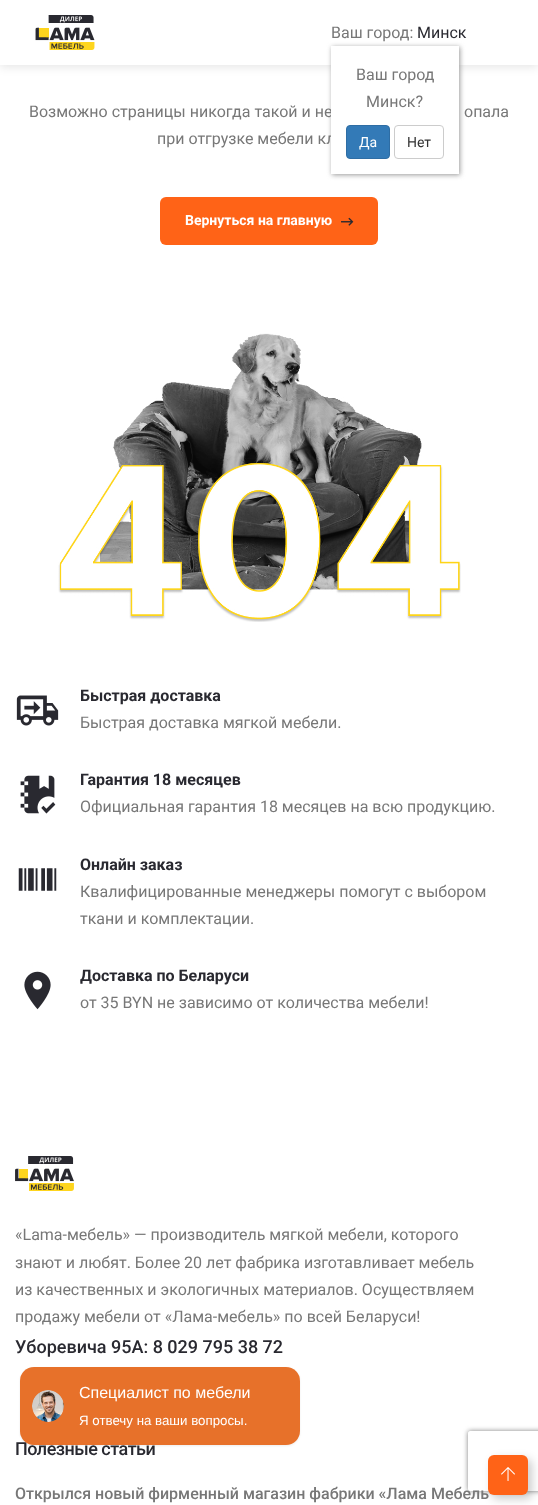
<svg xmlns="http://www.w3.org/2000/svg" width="538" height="1505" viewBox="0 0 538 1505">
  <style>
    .t1 { font: 16px Roboto; fill: #777; }
    .t2 { font: 16px Roboto; fill: #292930; }
    .t3 { font: 14px Roboto; fill: #fff; }
    .t4 { font: 14px Roboto; fill: #333; }
    .t5 { font: bold 14px Roboto; fill: #fff; }
    .t6 { font: bold 16px Roboto; fill: #292930; }
    .t7 { font: 500 18px Roboto; fill: #292930; }
    .t8 { font: 500 18px Roboto; letter-spacing: -0.5px; fill: #292930; }
    .t9 { font: 500 16px Roboto; fill: #777; }
    .t10 { font: 16px Liberation Sans; fill: #fff; }
    .t11 { font: 13.3px Liberation Sans; fill: #fff; }
  </style>
  <defs>
    <clipPath id="clip1"><path d="M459 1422H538V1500H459ZM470 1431H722C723 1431 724 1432 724 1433V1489C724 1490 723 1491 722 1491H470C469 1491 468 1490 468 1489V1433C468 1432 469 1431 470 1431Z" clip-rule="evenodd"/></clipPath>
  </defs>
  <rect width="100%" height="100%" fill="#fff"/>
  <rect x="0" y="2" width="538" height="65" fill="#0000001a" filter="blur(5px)"/>
  <rect x="0" y="0" width="538" height="65" fill="#fff"/>
  <image x="35" y="15" width="60" height="35" href="images/1.png"/>
  <text x="331" y="38" class="t1">Ваш город:</text>
  <text x="417" y="38" class="t2">Минск</text>
  <rect x="332" y="47" width="128" height="128" fill="#999" filter="blur(2.5px)"/>
  <text x="29" y="117" class="t1">Возможно страницы никогда такой и не</text>
  <text x="157" y="144" class="t1">при отгрузке мебели кл</text>
  <rect x="331" y="46" width="128" height="128" fill="#fff"/>
  <text x="356" y="80" class="t1">Ваш город</text>
  <text x="366" y="107" class="t1">Минск?</text>
  <rect x="346.5" y="125.5" width="43" height="33" rx="3.5" fill="#337ab7" stroke="#2e6da4"/>
  <text x="359" y="147" class="t3">Да</text>
  <rect x="394.5" y="125.5" width="49" height="33" rx="3.5" fill="none" stroke="#ccc"/>
  <text x="407" y="147" class="t4">Нет</text>
  <text x="464" y="117" class="t1">опала</text>
  <rect x="160" y="197" width="218" height="48" rx="6" fill="#ff6317"/>
  <text x="185" y="225" class="t5">Вернуться на главную</text>
  <image x="341" y="217" width="13" height="9" href="images/2.png"/>
  <image x="58" y="333" width="403" height="289" href="images/3.png"/>
  <image x="16" y="695" width="43" height="31" href="images/4.png"/>
  <text x="80" y="701" class="t6">Быстрая доставка</text>
  <text x="80" y="728" class="t1">Быстрая доставка мягкой мебели.</text>
  <image x="20" y="775" width="36" height="39" href="images/5.png"/>
  <text x="80" y="785" class="t6">Гарантия 18 месяцев</text>
  <text x="80" y="812" class="t1">Официальная гарантия 18 месяцев на всю продукцию.</text>
  <image x="18" y="868" width="39" height="23" href="images/6.png"/>
  <text x="80" y="870" class="t6">Онлайн заказ</text>
  <text x="80" y="897" class="t1">Квалифицированные менеджеры помогут с выбором</text>
  <text x="80" y="924" class="t1">ткани и комплектации.</text>
  <image x="24" y="971" width="27" height="39" href="images/7.png"/>
  <text x="80" y="981" class="t6">Доставка по Беларуси</text>
  <text x="80" y="1008" class="t1">от 35 BYN не зависимо от количества мебели!</text>
  <image x="15" y="1156" width="59" height="35" href="images/8.png"/>
  <text x="15" y="1240" class="t1">«Lama-мебель» — производитель мягкой мебели, которого</text>
  <text x="15" y="1268" class="t1">знают и любят. Более 20 лет фабрика изготавливает мебель</text>
  <text x="15" y="1295" class="t1">из качественных и экологичных материалов. Осуществляем</text>
  <text x="15" y="1322" class="t1">продажу мебели от «Лама-мебель» по всей Беларуси!</text>
  <text x="15" y="1353" class="t7">Уборевича 95А: 8 029 795 38 72</text>
  <text x="15" y="1455" class="t8">Полезные статьи</text>
  <text x="15" y="1499" class="t9">Открылся новый фирменный магазин фабрики «Лама Мебель</text>
  <rect x="20" y="1368" width="280" height="78" rx="14" fill="#00000012" filter="blur(1px)"/>
  <rect x="20" y="1367" width="280" height="78" rx="14" fill="#e7712a"/>
  <image x="32" y="1390" width="32" height="32" href="images/9.png"/>
  <text x="79" y="1398" class="t10">Специалист по мебели</text>
  <text x="79" y="1425" class="t11">Я отвечу на ваши вопросы.</text>
  <g clip-path="url(#clip1)">
    <rect x="468" y="1431" width="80" height="60" rx="2" fill="#808080" filter="blur(2.5px)"/>
  </g>
  <rect x="492" y="1459" width="40" height="40" rx="6" fill="#00000033" filter="blur(5px)"/>
  <rect x="488" y="1455" width="40" height="40" rx="6" fill="#ff6317"/>
  <image x="501" y="1467" width="14" height="14" href="images/10.png"/>
</svg>
